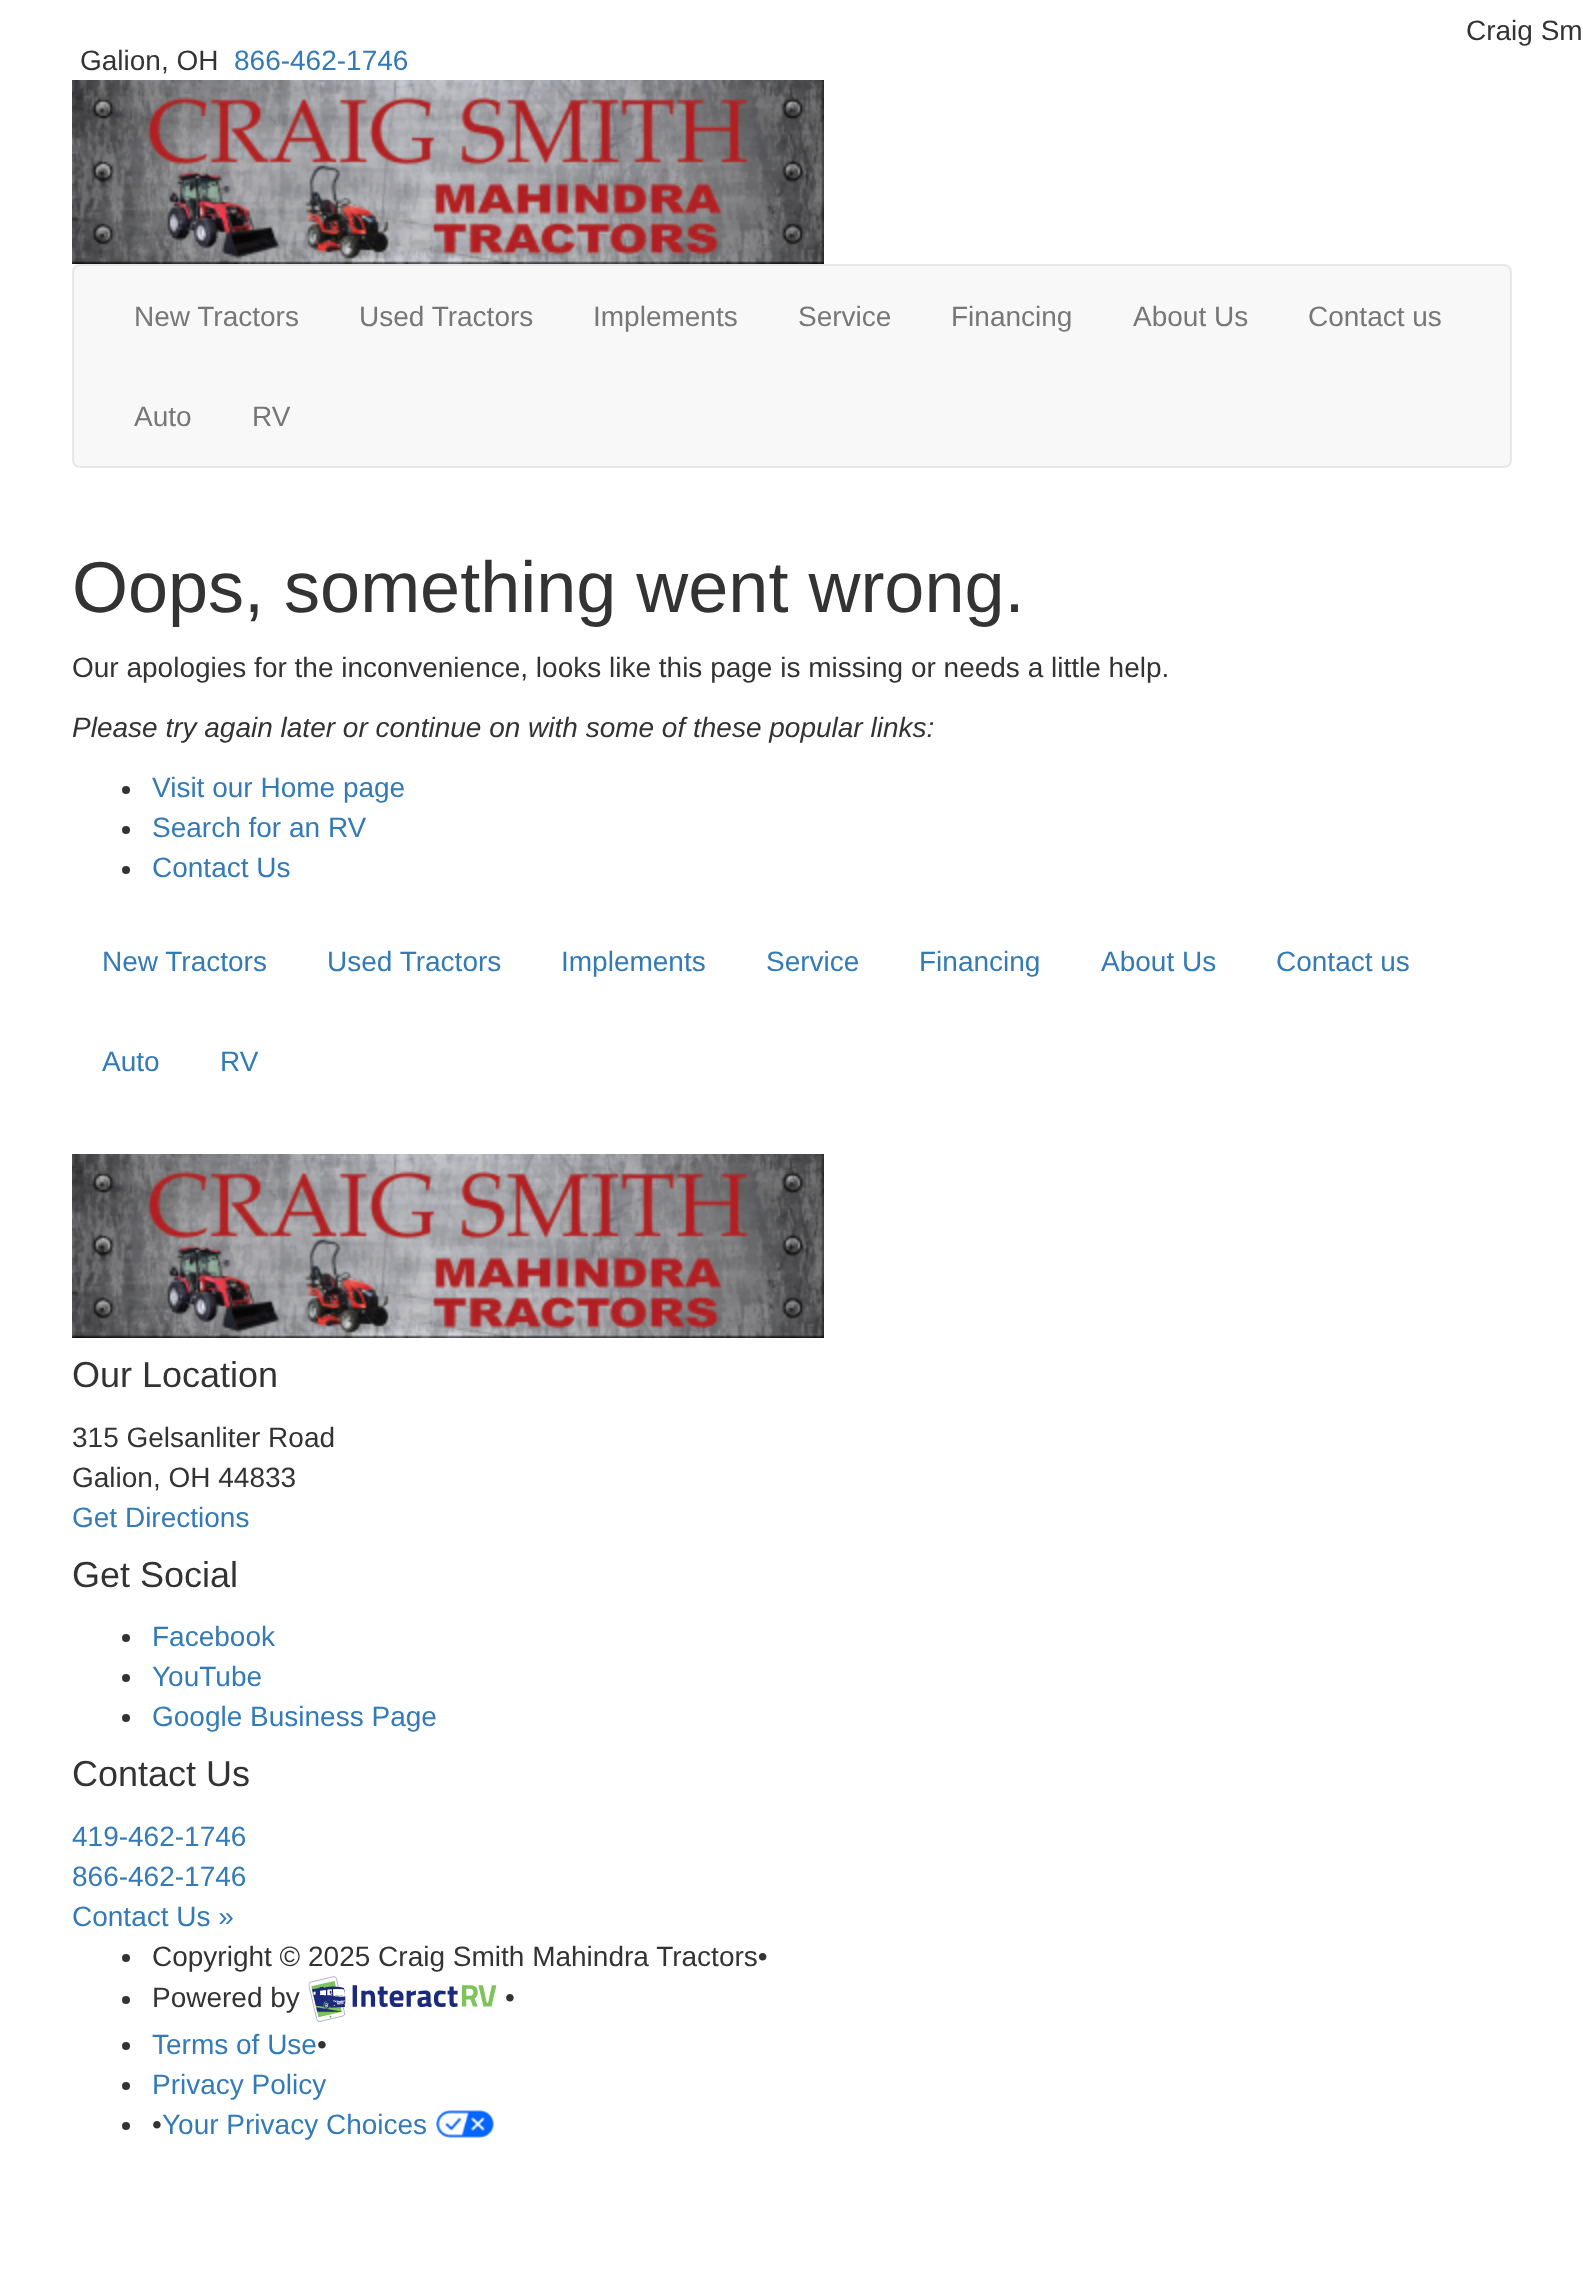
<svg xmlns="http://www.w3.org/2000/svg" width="1583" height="2295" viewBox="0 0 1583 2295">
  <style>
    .t1 { font: 28px Liberation Sans; fill: #333; }
    .t2 { font: 28px Liberation Sans; fill: #337ab7; }
    .t3 { font: 28px Liberation Sans; fill: #777; }
    .t4 { font: 72px Liberation Sans; fill: #333; }
    .t5 { font: italic 28px Liberation Sans; fill: #333; }
    .t6 { font: 36px Liberation Sans; fill: #333; }
  </style>
  <rect width="100%" height="100%" fill="#fff"/>
  <text x="1466" y="40" class="t1">Craig Sm</text>
  <text x="80" y="70" class="t1">Galion, OH</text>
  <text x="234" y="70" class="t2">866-462-1746</text>
  <image x="72" y="80" width="752" height="184" href="images/1.png"/>
  <rect x="73" y="265" width="1438" height="202" rx="7" fill="#f8f8f8" stroke="#e7e7e7" stroke-width="2"/>
  <text x="134" y="326" class="t3">New Tractors</text>
  <text x="359" y="326" class="t3">Used Tractors</text>
  <text x="593" y="326" class="t3">Implements</text>
  <text x="798" y="326" class="t3">Service</text>
  <text x="951" y="326" class="t3">Financing</text>
  <text x="1133" y="326" class="t3">About Us</text>
  <text x="1308" y="326" class="t3">Contact us</text>
  <text x="134" y="426" class="t3">Auto</text>
  <text x="252" y="426" class="t3">RV</text>
  <text x="72" y="612" class="t4">Oops, something went wrong.</text>
  <text x="72" y="677" class="t1">Our apologies for the inconvenience, looks like this page is missing or needs a little help.</text>
  <text x="72" y="737" class="t5">Please try again later or continue on with some of these popular links:</text>
  <circle cx="126" cy="790" r="4" fill="#333"/>
  <text x="152" y="797" class="t2">Visit our Home page</text>
  <circle cx="126" cy="830" r="4" fill="#333"/>
  <text x="152" y="837" class="t2">Search for an RV</text>
  <circle cx="126" cy="870" r="4" fill="#333"/>
  <text x="152" y="877" class="t2">Contact Us</text>
  <text x="102" y="971" class="t2">New Tractors</text>
  <text x="327" y="971" class="t2">Used Tractors</text>
  <text x="561" y="971" class="t2">Implements</text>
  <text x="766" y="971" class="t2">Service</text>
  <text x="919" y="971" class="t2">Financing</text>
  <text x="1101" y="971" class="t2">About Us</text>
  <text x="1276" y="971" class="t2">Contact us</text>
  <text x="102" y="1071" class="t2">Auto</text>
  <text x="220" y="1071" class="t2">RV</text>
  <image x="72" y="1154" width="752" height="184" href="images/1.png"/>
  <text x="72" y="1387" class="t6">Our Location</text>
  <text x="72" y="1447" class="t1">315 Gelsanliter Road</text>
  <text x="72" y="1487" class="t1">Galion, OH 44833</text>
  <text x="72" y="1527" class="t2">Get Directions</text>
  <text x="72" y="1587" class="t6">Get Social</text>
  <circle cx="126" cy="1638" r="4" fill="#333"/>
  <text x="152" y="1646" class="t2">Facebook</text>
  <circle cx="126" cy="1678" r="4" fill="#333"/>
  <text x="152" y="1686" class="t2">YouTube</text>
  <circle cx="126" cy="1718" r="4" fill="#333"/>
  <text x="152" y="1726" class="t2">Google Business Page</text>
  <text x="72" y="1786" class="t6">Contact Us</text>
  <text x="72" y="1846" class="t2">419-462-1746</text>
  <text x="72" y="1886" class="t2">866-462-1746</text>
  <text x="72" y="1926" class="t2">Contact Us »</text>
  <circle cx="126" cy="1958" r="4" fill="#333"/>
  <text x="152" y="1966" class="t1">Copyright © 2025 Craig Smith Mahindra Tractors•</text>
  <circle cx="126" cy="2000" r="4" fill="#333"/>
  <text x="152" y="2007" class="t1">Powered by</text>
  <image x="308" y="1976" width="189" height="46" href="images/2.png"/>
  <text x="505" y="2007" class="t1">•</text>
  <circle cx="126" cy="2046" r="4" fill="#333"/>
  <text x="152" y="2054" class="t2">Terms of Use</text>
  <text x="317" y="2054" class="t1">•</text>
  <circle cx="126" cy="2086" r="4" fill="#333"/>
  <text x="152" y="2094" class="t2">Privacy Policy</text>
  <circle cx="126" cy="2126" r="4" fill="#333"/>
  <text x="152" y="2134" class="t1">•</text>
  <text x="162" y="2134" class="t2">Your Privacy Choices</text>
  <image x="436" y="2110" width="58" height="28" href="images/3.png"/>
</svg>
